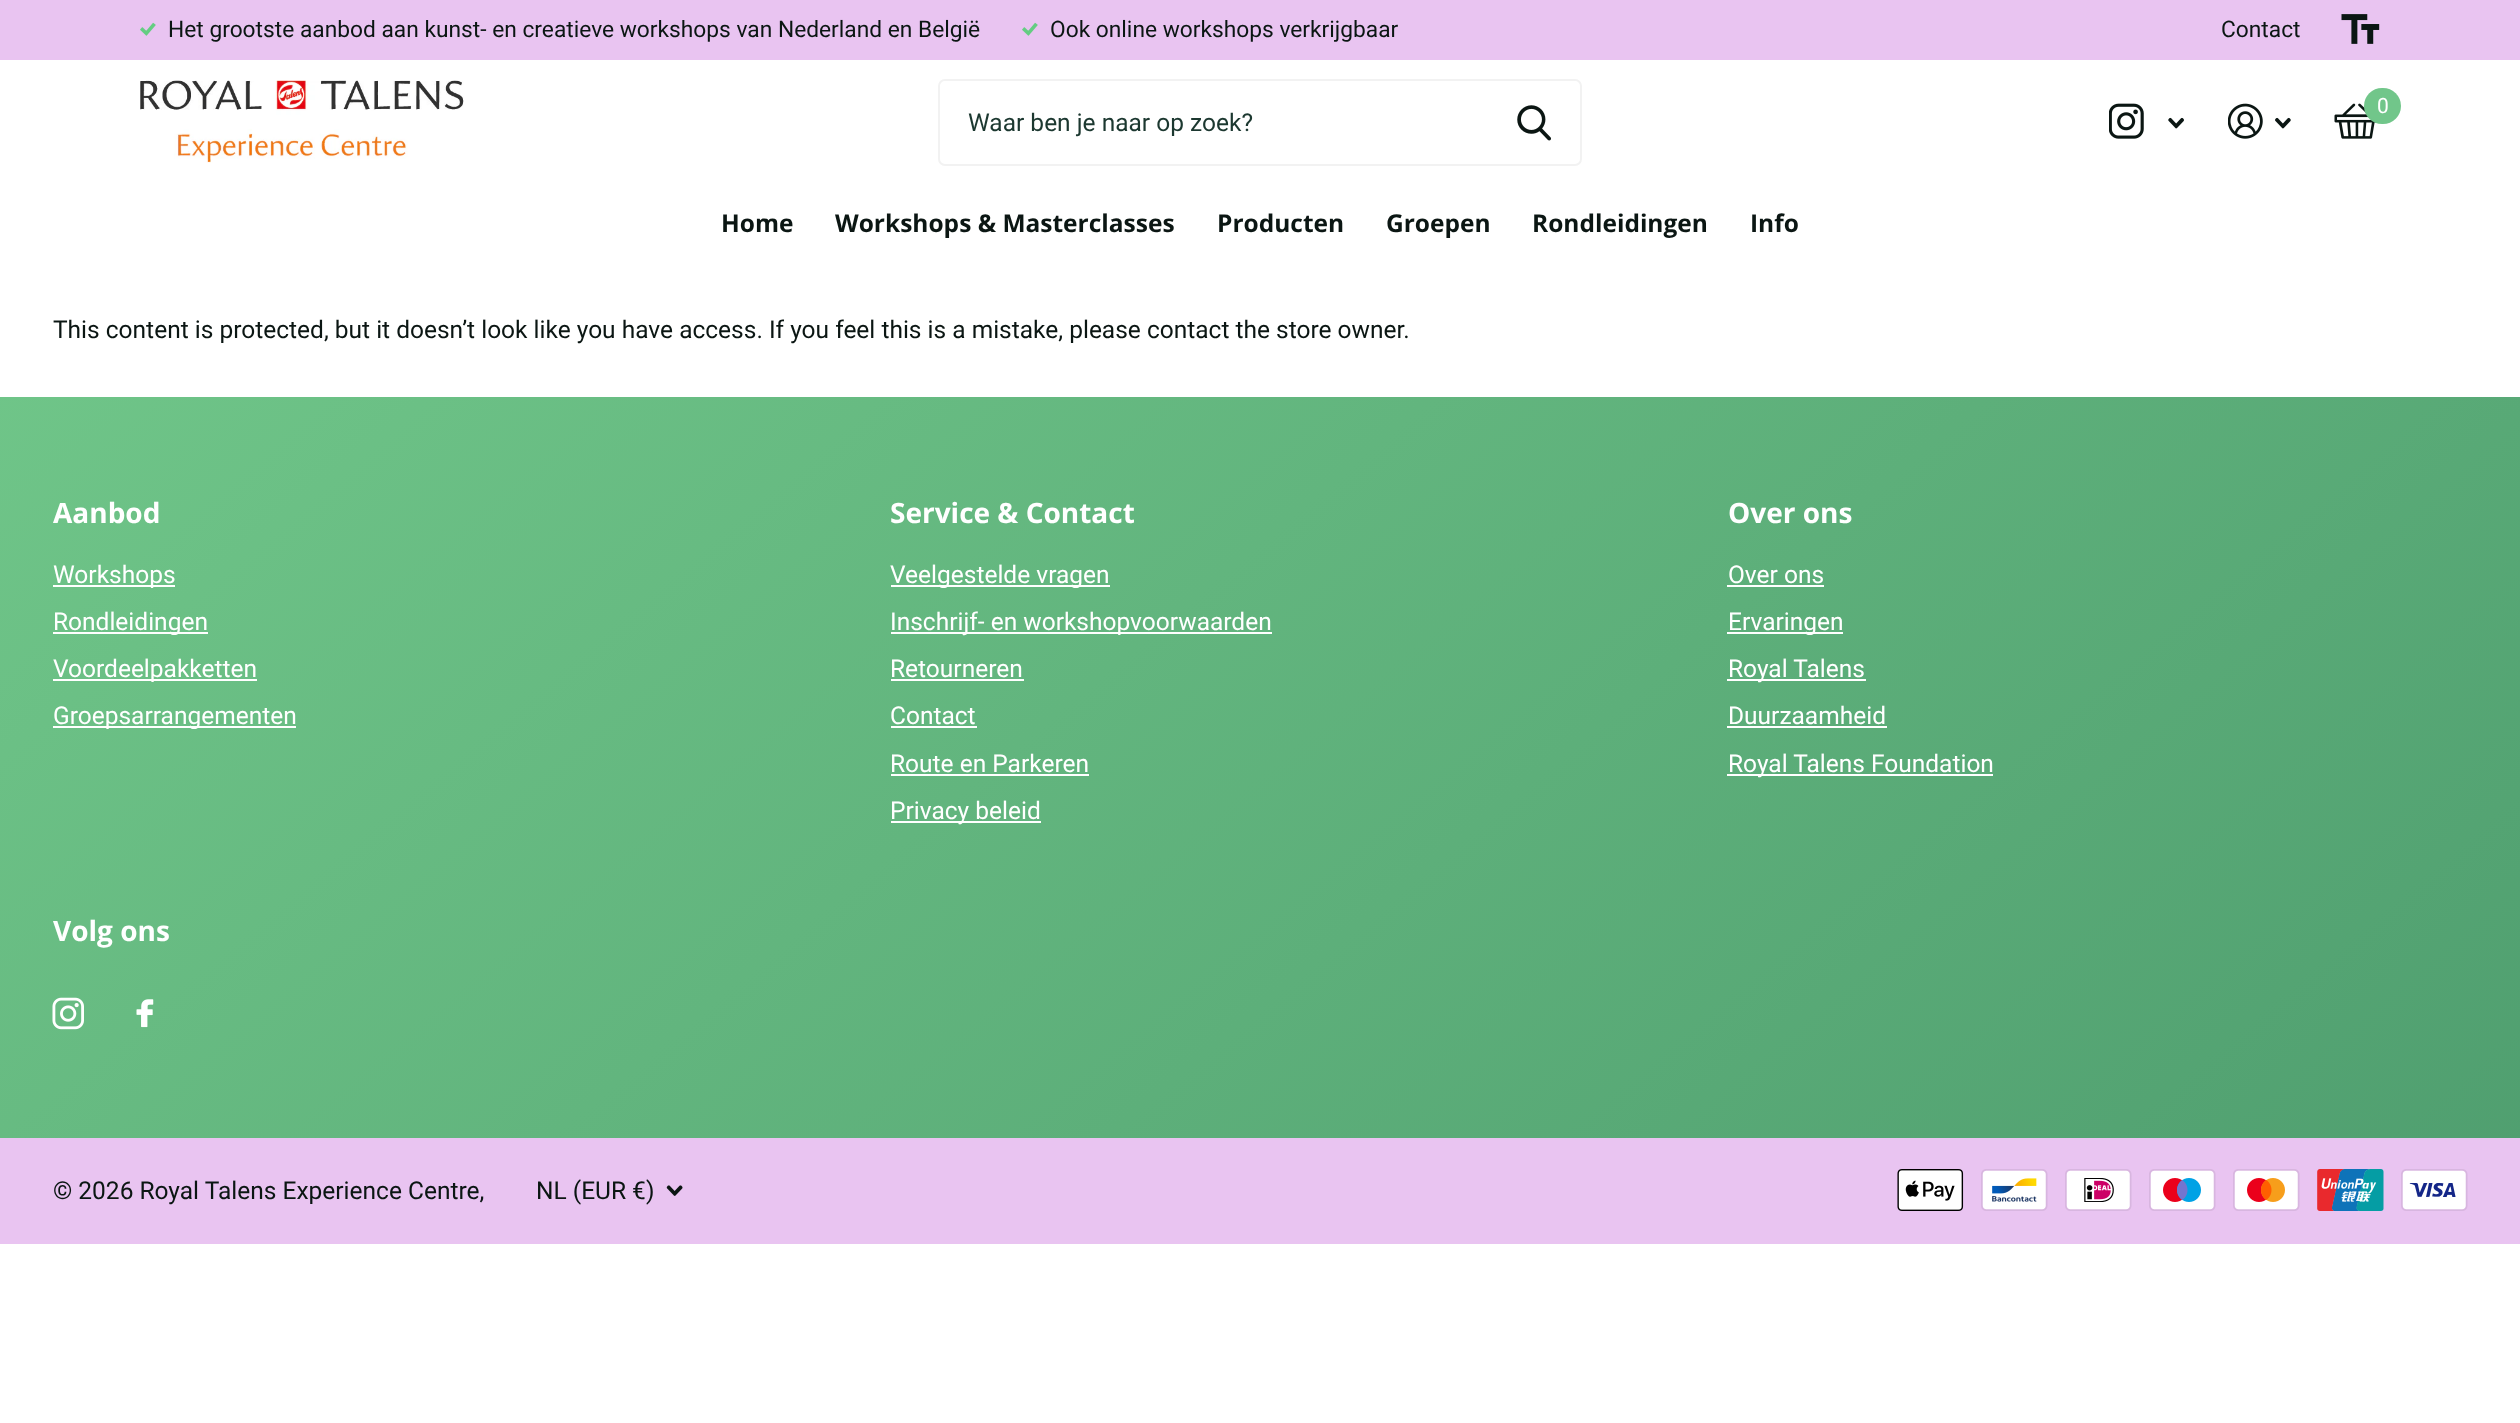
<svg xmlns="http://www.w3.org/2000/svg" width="2520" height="1423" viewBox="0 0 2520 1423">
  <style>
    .t1 { font: 22.75px Roboto; fill: #0b1613; }
    .t2 { font: 21px Roboto; fill: #fff; }
    .t3 { font: 24.5px Roboto; fill: #1c3830; }
    .t4 { font: bold 24.5px Open Sans; fill: #0b1613; }
    .t5 { font: 24.5px Roboto; fill: #0b1613; }
    .t6 { font: bold 28px Open Sans; fill: #fff; }
    .t7 { font: 24.5px Roboto; fill: #fff; }
  </style>
  <defs>
    <linearGradient id="g1" gradientUnits="userSpaceOnUse" x1="2041" y1="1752" x2="479" y2="-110"><stop offset="0.03" stop-color="#4f9e6f"/><stop offset="1" stop-color="#70c689"/></linearGradient>
  </defs>
  <rect width="100%" height="100%" fill="#fff"/>
  <rect x="0" y="0" width="2520" height="60" fill="#e9c4f1"/>
  <image x="140" y="22" width="16" height="14" href="images/1.png"/>
  <text x="168" y="37" class="t1">Het grootste aanbod aan kunst- en creatieve workshops van Nederland en België</text>
  <image x="1022" y="22" width="16" height="14" href="images/1.png"/>
  <text x="1050" y="37" class="t1">Ook online workshops verkrijgbaar</text>
  <text x="2221" y="37" class="t1">Contact</text>
  <image x="2341" y="14" width="39" height="30" href="images/2.png"/>
  <image x="140" y="80" width="324" height="83" href="images/3.png"/>
  <image x="2109" y="103" width="35" height="36" href="images/4.png"/>
  <image x="2168" y="117" width="16" height="12" href="images/5.png"/>
  <image x="2228" y="103" width="35" height="36" href="images/6.png"/>
  <image x="2275" y="117" width="16" height="12" href="images/7.png"/>
  <image x="2334" y="103" width="42" height="36" href="images/8.png"/>
  <rect x="2364" y="88" width="37" height="36" rx="18" fill="#71c68a"/>
  <text x="2377" y="113" class="t2">0</text>
  <rect x="939" y="80" width="642" height="85" rx="6" fill="none" stroke="#f2f2f2" stroke-width="2"/>
  <text x="968" y="131" class="t3">Waar ben je naar op zoek?</text>
  <image x="1517" y="105" width="34" height="36" href="images/9.png"/>
  <text x="721" y="232" class="t4">Home</text>
  <text x="835" y="232" class="t4">Workshops &amp; Masterclasses</text>
  <text x="1217" y="232" class="t4">Producten</text>
  <text x="1386" y="232" class="t4">Groepen</text>
  <text x="1532" y="232" class="t4">Rondleidingen</text>
  <text x="1750" y="232" class="t4">Info</text>
  <text x="53" y="338" class="t5">This content is protected, but it doesn’t look like you have access. If you feel this is a mistake, please contact the store owner.</text>
  <rect x="0" y="397" width="2520" height="741" fill="url(#g1)"/>
  <text x="53" y="523" class="t6">Aanbod</text>
  <rect x="53" y="585" width="122" height="2" fill="#fff"/>
  <text x="53" y="583" class="t7">Workshops</text>
  <rect x="53" y="632" width="155" height="2" fill="#fff"/>
  <text x="53" y="630" class="t7">Rondleidingen</text>
  <rect x="53" y="679" width="204" height="2" fill="#fff"/>
  <text x="53" y="677" class="t7">Voordeelpakketten</text>
  <rect x="53" y="726" width="243" height="2" fill="#fff"/>
  <text x="53" y="724" class="t7">Groepsarrangementen</text>
  <text x="890" y="523" class="t6">Service &amp; Contact</text>
  <rect x="891" y="585" width="219" height="2" fill="#fff"/>
  <text x="890" y="583" class="t7">Veelgestelde vragen</text>
  <rect x="891" y="632" width="381" height="2" fill="#fff"/>
  <text x="890" y="630" class="t7">Inschrijf- en workshopvoorwaarden</text>
  <text x="890" y="677" class="t7">Retourneren</text>
  <rect x="891" y="679" width="133" height="2" fill="#fff"/>
  <text x="890" y="724" class="t7">Contact</text>
  <rect x="891" y="726" width="86" height="2" fill="#fff"/>
  <text x="890" y="772" class="t7">Route en Parkeren</text>
  <rect x="891" y="774" width="198" height="2" fill="#fff"/>
  <rect x="891" y="821" width="150" height="2" fill="#fff"/>
  <text x="890" y="819" class="t7">Privacy beleid</text>
  <text x="1728" y="523" class="t6">Over ons</text>
  <text x="1728" y="583" class="t7">Over ons</text>
  <rect x="1727" y="585" width="97" height="2" fill="#fff"/>
  <rect x="1727" y="632" width="116" height="2" fill="#fff"/>
  <text x="1728" y="630" class="t7">Ervaringen</text>
  <rect x="1727" y="679" width="139" height="2" fill="#fff"/>
  <text x="1728" y="677" class="t7">Royal Talens</text>
  <text x="1728" y="724" class="t7">Duurzaamheid</text>
  <rect x="1727" y="726" width="160" height="2" fill="#fff"/>
  <rect x="1727" y="774" width="266" height="2" fill="#fff"/>
  <text x="1728" y="772" class="t7">Royal Talens Foundation</text>
  <text x="53" y="941" class="t6">Volg ons</text>
  <image x="52" y="997" width="32" height="33" href="images/10.png"/>
  <image x="136" y="999" width="18" height="29" href="images/11.png"/>
  <rect x="0" y="1138" width="2520" height="106" fill="#e9c4f1"/>
  <text x="53" y="1199" class="t5">© 2026 Royal Talens Experience Centre,</text>
  <text x="536" y="1199" class="t5">NL (EUR €)</text>
  <image x="666" y="1185" width="17" height="11" href="images/12.png"/>
  <image x="1897" y="1169" width="67" height="42" href="images/13.png"/>
  <image x="1981" y="1169" width="67" height="42" href="images/14.png"/>
  <image x="2065" y="1169" width="67" height="42" href="images/15.png"/>
  <image x="2149" y="1169" width="67" height="42" href="images/16.png"/>
  <image x="2233" y="1169" width="67" height="42" href="images/17.png"/>
  <image x="2317" y="1169" width="67" height="42" href="images/18.png"/>
  <image x="2401" y="1169" width="67" height="42" href="images/19.png"/>
</svg>
